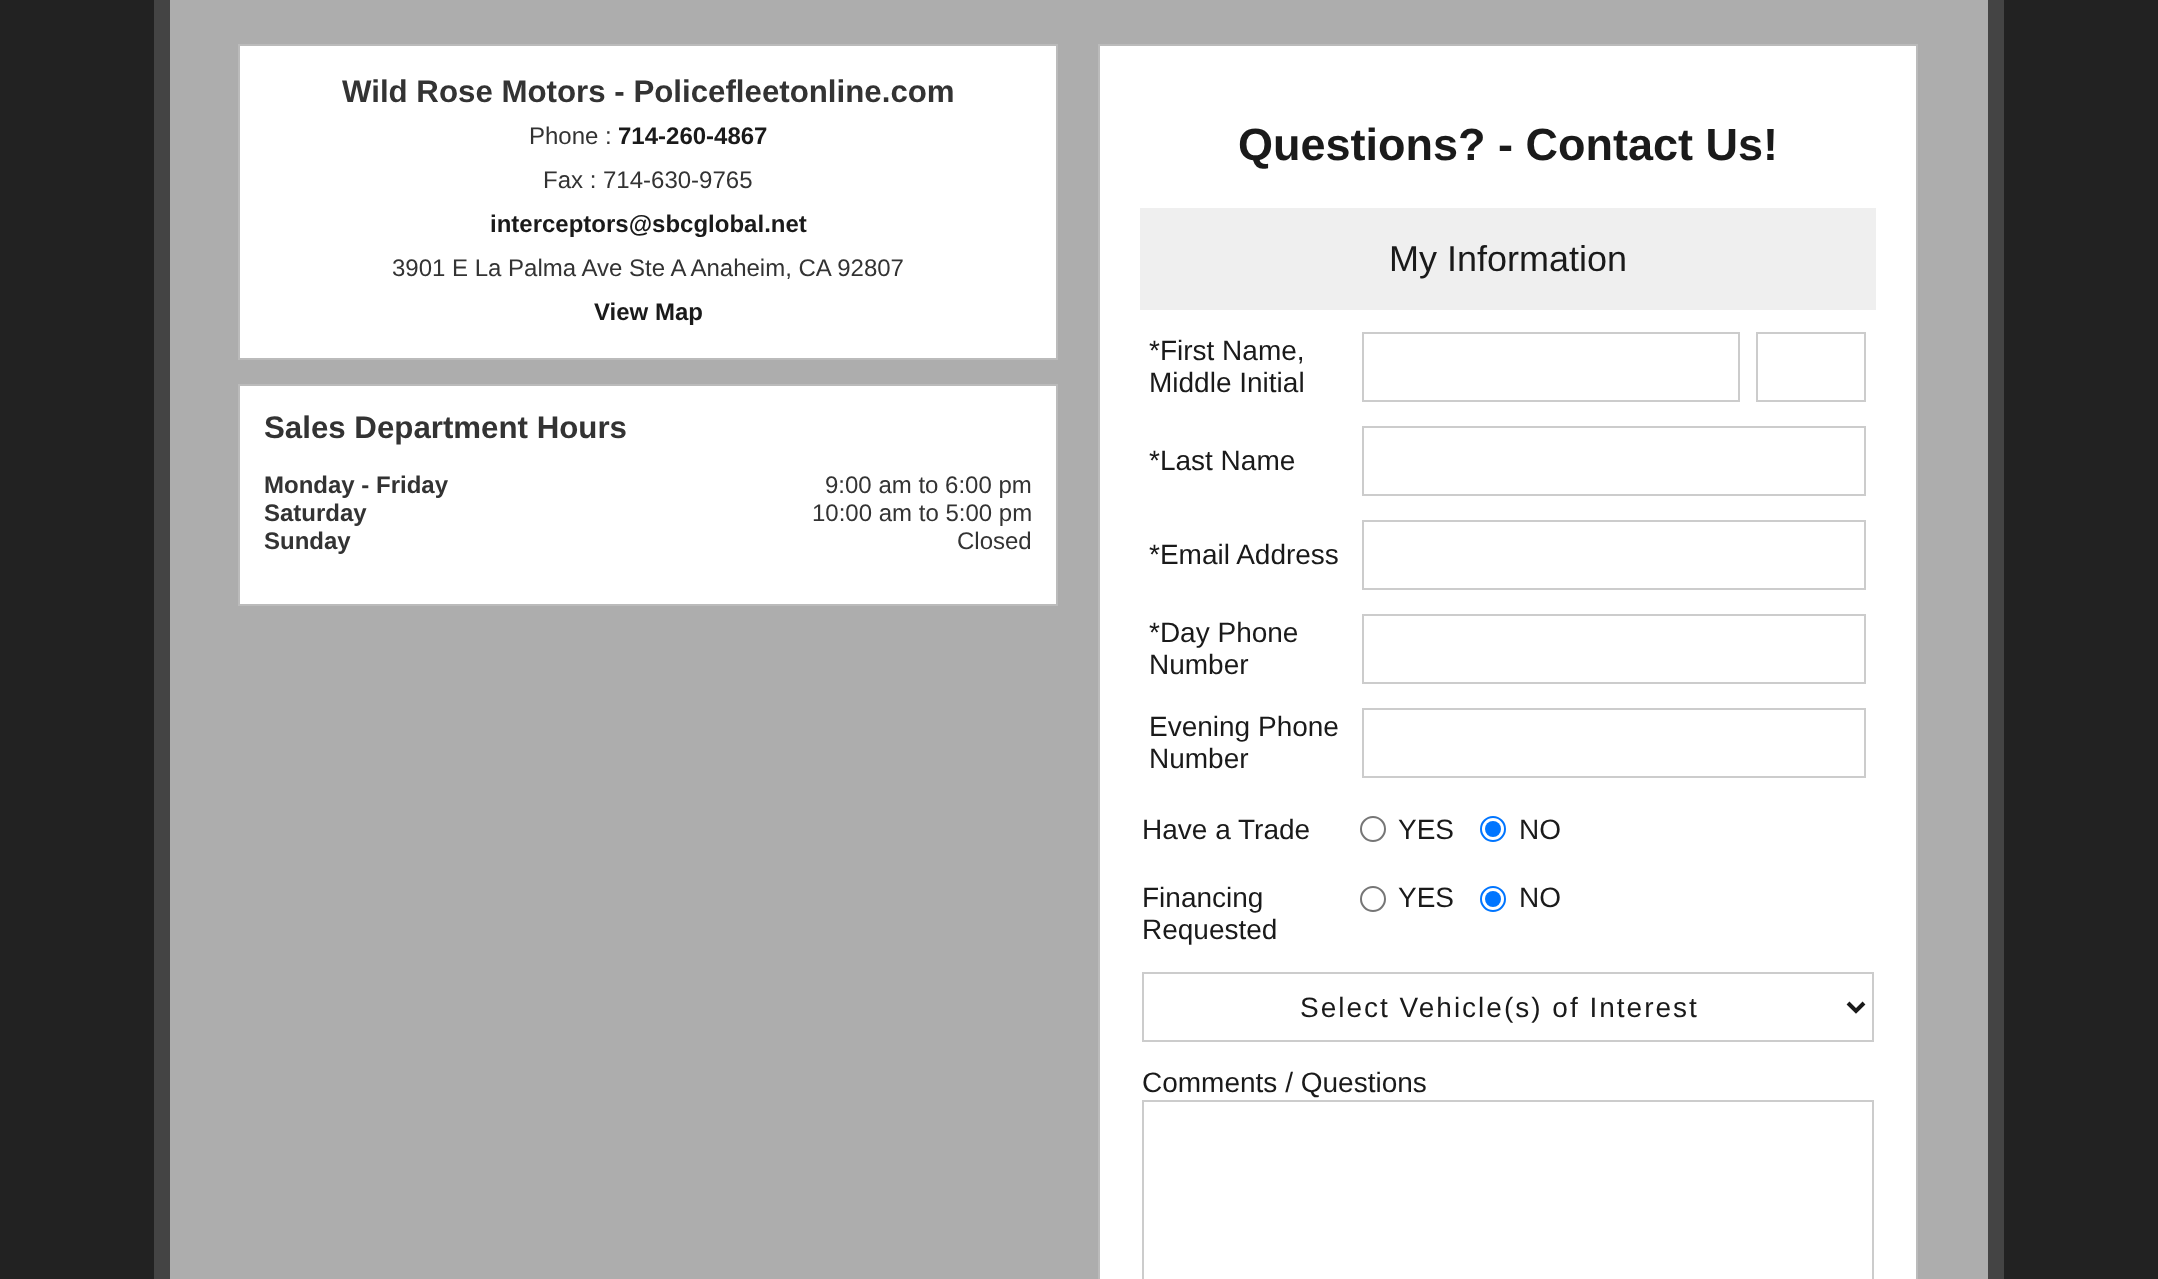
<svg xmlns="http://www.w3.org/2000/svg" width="2158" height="1279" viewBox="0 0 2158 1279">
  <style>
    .t1 { font: bold 31.25px Liberation Sans; fill: #333; }
    .t2 { font: 24px Liberation Sans; fill: #333; }
    .t3 { font: bold 24px Liberation Sans; fill: #1a1a1a; }
    .t4 { font: bold 24px Liberation Sans; fill: #333; }
    .t5 { font: bold 45px Liberation Sans; fill: #1a1a1a; }
    .t6 { font: 36px Liberation Sans; fill: #1a1a1a; }
    .t7 { font: 28px Liberation Sans; fill: #1a1a1a; }
    .t8 { font: 28px Liberation Sans; letter-spacing: 2px; fill: #1a1a1a; }
  </style>
  <rect width="100%" height="100%" fill="#222"/>
  <rect x="162" y="-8" width="1834" height="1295" fill="#adadad" stroke="#444" stroke-width="16"/>
  <rect x="239" y="45" width="818" height="314" fill="#fff" stroke="#bbb" stroke-width="2"/>
  <text x="342" y="102" class="t1">Wild Rose Motors - Policefleetonline.com</text>
  <text x="529" y="144" class="t2">Phone :</text>
  <text x="618" y="144" class="t3">714-260-4867</text>
  <text x="543" y="188" class="t2">Fax : 714-630-9765</text>
  <text x="490" y="232" class="t3">interceptors@sbcglobal.net</text>
  <text x="392" y="276" class="t2">3901 E La Palma Ave Ste A Anaheim, CA 92807</text>
  <text x="594" y="320" class="t3">View Map</text>
  <rect x="239" y="385" width="818" height="220" fill="#fff" stroke="#bbb" stroke-width="2"/>
  <text x="264" y="438" class="t1">Sales Department Hours</text>
  <text x="264" y="493" class="t4">Monday - Friday</text>
  <text x="825" y="493" class="t2">9:00 am to 6:00 pm</text>
  <text x="264" y="521" class="t4">Saturday</text>
  <text x="812" y="521" class="t2">10:00 am to 5:00 pm</text>
  <text x="264" y="549" class="t4">Sunday</text>
  <text x="957" y="549" class="t2">Closed</text>
  <rect x="1099" y="45" width="818" height="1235" fill="#fff" stroke="#bbb" stroke-width="2"/>
  <text x="1238" y="160" class="t5">Questions? - Contact Us!</text>
  <rect x="1140" y="208" width="736" height="102" fill="#efefef"/>
  <text x="1389" y="271" class="t6">My Information</text>
  <text x="1149" y="360" class="t7">*First Name,</text>
  <text x="1149" y="392" class="t7">Middle Initial</text>
  <rect x="1363" y="333" width="376" height="68" fill="none" stroke="#ccc" stroke-width="2"/>
  <rect x="1757" y="333" width="108" height="68" fill="none" stroke="#ccc" stroke-width="2"/>
  <text x="1149" y="470" class="t7">*Last Name</text>
  <rect x="1363" y="427" width="502" height="68" fill="none" stroke="#ccc" stroke-width="2"/>
  <text x="1149" y="564" class="t7">*Email Address</text>
  <rect x="1363" y="521" width="502" height="68" fill="none" stroke="#ccc" stroke-width="2"/>
  <text x="1149" y="642" class="t7">*Day Phone</text>
  <text x="1149" y="674" class="t7">Number</text>
  <rect x="1363" y="615" width="502" height="68" fill="none" stroke="#ccc" stroke-width="2"/>
  <text x="1149" y="736" class="t7">Evening Phone</text>
  <text x="1149" y="768" class="t7">Number</text>
  <rect x="1363" y="709" width="502" height="68" fill="none" stroke="#ccc" stroke-width="2"/>
  <text x="1142" y="839" class="t7">Have a Trade</text>
  <circle cx="1373" cy="829" r="12" fill="none" stroke="#767676" stroke-width="2"/>
  <text x="1398" y="839" class="t7">YES</text>
  <circle cx="1493" cy="829" r="12" fill="none" stroke="#0075ff" stroke-width="2"/>
  <circle cx="1493" cy="829" r="8" fill="#0075ff"/>
  <text x="1519" y="839" class="t7">NO</text>
  <text x="1142" y="907" class="t7">Financing</text>
  <text x="1142" y="939" class="t7">Requested</text>
  <circle cx="1373" cy="899" r="12" fill="none" stroke="#767676" stroke-width="2"/>
  <text x="1398" y="907" class="t7">YES</text>
  <circle cx="1493" cy="899" r="12" fill="none" stroke="#0075ff" stroke-width="2"/>
  <circle cx="1493" cy="899" r="8" fill="#0075ff"/>
  <text x="1519" y="907" class="t7">NO</text>
  <rect x="1143" y="973" width="730" height="68" fill="none" stroke="#ccc" stroke-width="2"/>
  <path d="M1848 1003L1856 1011L1864 1003" fill="none" stroke="#1a1a1a" stroke-width="4"/>
  <text x="1300" y="1017" class="t8">Select Vehicle(s) of Interest</text>
  <text x="1142" y="1092" class="t7">Comments / Questions</text>
  <rect x="1143" y="1101" width="730" height="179" fill="none" stroke="#ccc" stroke-width="2"/>
</svg>
